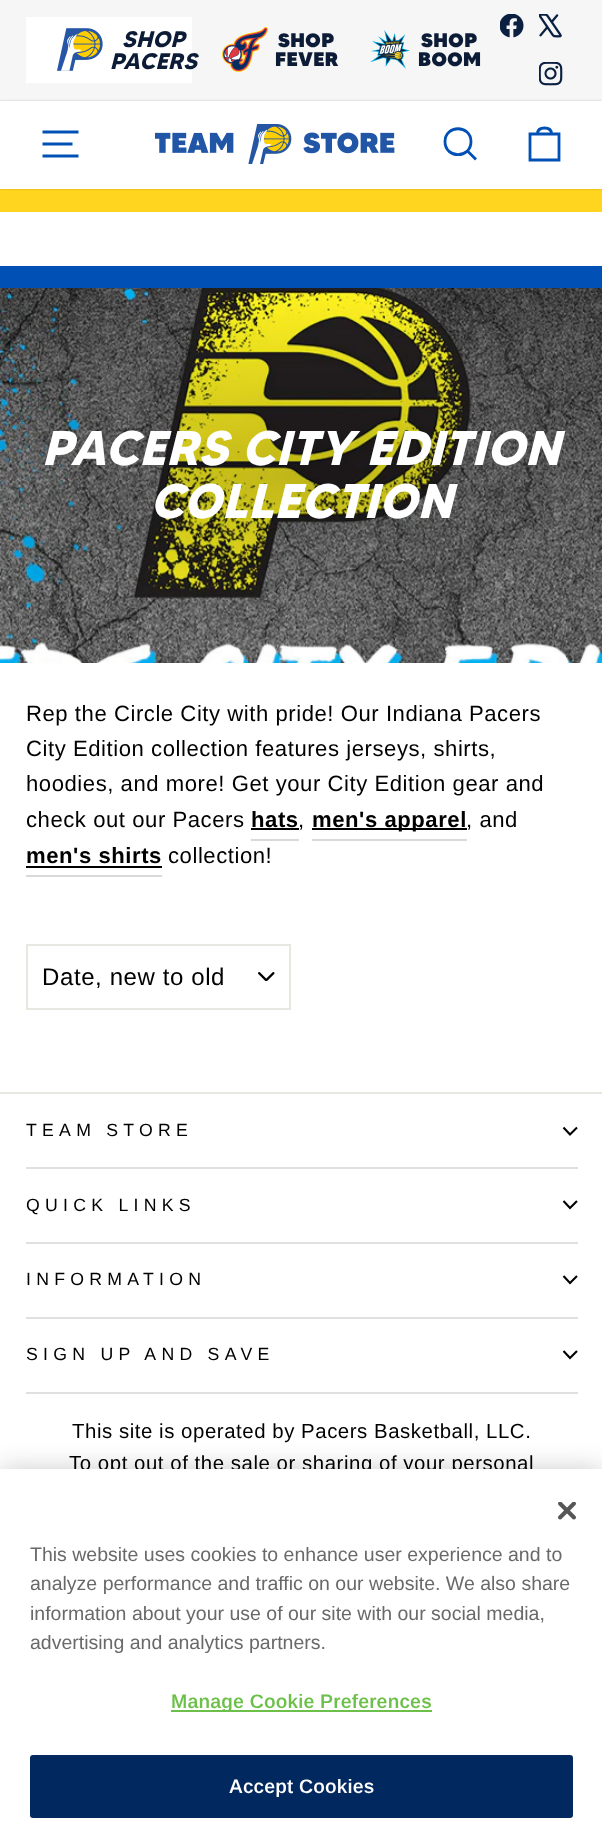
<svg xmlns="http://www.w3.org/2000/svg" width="602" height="1842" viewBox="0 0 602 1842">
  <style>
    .t1 { font: italic bold 22.5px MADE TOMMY; letter-spacing: 0.5px; fill: #0c1b36; }
    .t2 { font: 900 19.5px MADE TOMMY; letter-spacing: 0.5px; fill: #0c1b36; }
    .t3 { font: italic bold 48.5px MADE TOMMY; letter-spacing: 0.8px; fill: #fff; }
    .t4 { font: 22.1px Arimo; letter-spacing: 0.55px; fill: #000; }
    .t5 { font: bold 22.1px Arimo; letter-spacing: 0.55px; fill: #000; }
    .t6 { font: 24px Arimo; letter-spacing: 0.6px; fill: #000; }
    .t7 { font: 17.7px Arimo; letter-spacing: 5.25px; fill: #000; }
    .t8 { font: 20.4px Arimo; letter-spacing: 0.55px; fill: #000; }
    .t9 { font: 19.5px Arimo; fill: #696969; }
    .t10 { font: 600 19.5px Arimo; letter-spacing: 0.2px; fill: #6cc04a; }
    .t11 { font: 600 19.5px Arimo; letter-spacing: 0.2px; fill: #fff; }
  </style>
  <defs>
    <clipPath id="clip1"><path d="M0 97H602V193H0ZM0 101H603V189H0Z" clip-rule="evenodd"/></clipPath>
  </defs>
  <rect width="100%" height="100%" fill="#fff"/>
  <rect x="0" y="0" width="602" height="101" fill="#f6f6f6"/>
  <rect x="26" y="17" width="166" height="66" fill="#fff"/>
  <image x="57" y="28" width="46" height="43" href="images/1.png"/>
  <text x="122" y="47" class="t1">SHOP</text>
  <text x="110" y="69" class="t1">PACERS</text>
  <image x="222" y="27" width="47" height="45" href="images/2.png"/>
  <text x="278" y="47" class="t2">SHOP</text>
  <text x="275" y="66" class="t2">FEVER</text>
  <image x="370" y="30" width="40" height="39" href="images/3.png"/>
  <text x="421" y="47" class="t2">SHOP</text>
  <text x="418" y="66" class="t2">BOOM</text>
  <image x="500" y="14" width="24" height="24" href="images/4.png"/>
  <image x="539" y="14" width="23" height="24" href="images/5.png"/>
  <image x="539" y="62" width="24" height="24" href="images/6.png"/>
  <rect x="0" y="189" width="602" height="23" fill="#ffd520"/>
  <g clip-path="url(#clip1)">
    <rect x="0" y="101" width="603" height="88" fill="#00000033" filter="blur(1px)"/>
  </g>
  <path d="M42.5 132H78.5M42.5 144H72.5M42.5 156H78.5" fill="none" stroke="#0050b5" stroke-width="2.8"/>
  <image x="155" y="124" width="240" height="40" href="images/7.png"/>
  <path d="M471 141.5C471 159 445 159 445 141.5C445 124.5 471 124.5 471 141.5ZM476 159.5L467.5 151" fill="none" stroke="#0050b5" stroke-width="2.8"/>
  <path d="M530 134H559V160H530ZM537.5 134C537.5 129 540.5 128 544.5 128C548.5 128 551.5 129 551.5 134" fill="none" stroke="#0050b5" stroke-width="2.8"/>
  <rect x="0" y="266" width="602" height="22" fill="#0050b5"/>
  <image x="0" y="288" width="602" height="375" href="images/8.png"/>
  <text x="42" y="465" class="t3">PACERS CITY EDITION</text>
  <text x="150" y="518" class="t3">COLLECTION</text>
  <text x="26" y="721" class="t4">Rep the Circle City with pride! Our Indiana Pacers</text>
  <text x="26" y="756" class="t4">City Edition collection features jerseys, shirts,</text>
  <text x="26" y="791" class="t4">hoodies, and more! Get your City Edition gear and</text>
  <text x="26" y="827" class="t4">check out our Pacers</text>
  <rect x="251" y="839" width="48" height="2" fill="#d9d9d9"/>
  <text x="251" y="827" class="t5">hats</text>
  <rect x="251" y="828" width="48" height="2" fill="#000"/>
  <text x="298" y="827" class="t4">,</text>
  <rect x="312" y="839" width="155" height="2" fill="#d9d9d9"/>
  <rect x="312" y="828" width="155" height="2" fill="#000"/>
  <text x="312" y="827" class="t5">men's apparel</text>
  <text x="466" y="827" class="t4">, and</text>
  <rect x="26" y="875" width="136" height="2" fill="#d9d9d9"/>
  <text x="26" y="863" class="t5">men's shirts</text>
  <rect x="26" y="866" width="136" height="2" fill="#000"/>
  <text x="168" y="863" class="t4">collection!</text>
  <image x="258" y="972" width="17" height="9" href="images/9.png"/>
  <rect x="27" y="945" width="263" height="64" fill="none" stroke="#e8e8e1" stroke-width="2"/>
  <text x="42" y="985" class="t6">Date, new to old</text>
  <rect x="0" y="1092" width="602" height="2" fill="#e8e8e1"/>
  <text x="26" y="1136" class="t7">TEAM STORE</text>
  <path d="M563.5 1127.5L570 1134.5L577 1127.5" fill="none" stroke="#000" stroke-width="2.1"/>
  <rect x="26" y="1167" width="552" height="2" fill="#e0e0e0"/>
  <text x="26" y="1211" class="t7">QUICK LINKS</text>
  <path d="M563.5 1201L570 1208L577 1201" fill="none" stroke="#000" stroke-width="2.1"/>
  <rect x="26" y="1242" width="552" height="2" fill="#e0e0e0"/>
  <text x="26" y="1285" class="t7">INFORMATION</text>
  <path d="M563.5 1276L570 1283L577 1276" fill="none" stroke="#000" stroke-width="2.1"/>
  <rect x="26" y="1317" width="552" height="2" fill="#e0e0e0"/>
  <text x="26" y="1360" class="t7">SIGN UP AND SAVE</text>
  <path d="M563.5 1351L570 1358L577 1351" fill="none" stroke="#000" stroke-width="2.1"/>
  <rect x="26" y="1392" width="552" height="2" fill="#e0e0e0"/>
  <text x="72" y="1438" class="t8">This site is operated by Pacers Basketball, LLC.</text>
  <text x="69" y="1470" class="t8">To opt out of the sale or sharing of your personal</text>
  <rect x="0" y="1469" width="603" height="373" fill="#00000033" filter="blur(13.5px)"/>
  <rect x="0" y="1469" width="602" height="373" fill="#fff"/>
  <image x="558" y="1502" width="18" height="18" href="images/10.png"/>
  <text x="30" y="1561" class="t9">This website uses cookies to enhance user experience and to</text>
  <text x="30" y="1590" class="t9">analyze performance and traffic on our website. We also share</text>
  <text x="30" y="1620" class="t9">information about your use of our site with our social media,</text>
  <text x="30" y="1649" class="t9">advertising and analytics partners.</text>
  <rect x="171" y="1710" width="261" height="2" fill="#6cc04a"/>
  <text x="171" y="1708" class="t10">Manage Cookie Preferences</text>
  <rect x="31" y="1756" width="541" height="61" rx="2" fill="#01285f" stroke="#01285f" stroke-width="2"/>
  <text x="229" y="1793" class="t11">Accept Cookies</text>
</svg>
